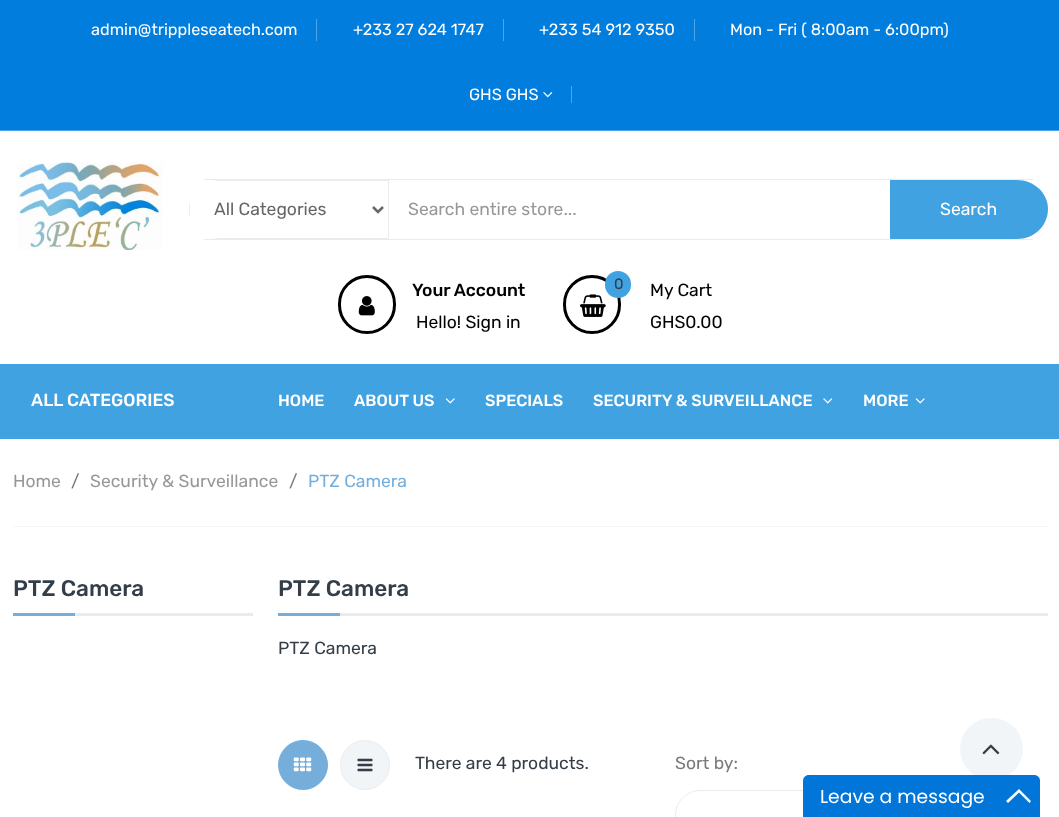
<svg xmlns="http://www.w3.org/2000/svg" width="1059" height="817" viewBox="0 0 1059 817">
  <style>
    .t1 { font: 16.25px Rubik; fill: #fff; }
    .t2 { font: 17.5px Rubik; fill: #666; }
    .t3 { font: 17.5px Rubik; fill: #989898; }
    .t4 { font: 17.5px Rubik; fill: #fff; }
    .t5 { font: 500 17.5px Rubik; fill: #000; }
    .t6 { font: 17.5px Rubik; fill: #000; }
    .t7 { font: 15px Rubik; fill: #333e48; }
    .t8 { font: 500 17.5px Rubik; fill: #fff; }
    .t9 { font: 500 16.25px Rubik; fill: #fff; }
    .t10 { font: 17.5px Rubik; fill: #7a7a7a; }
    .t11 { font: 17.5px Rubik; fill: #76aedb; }
    .t12 { font: 500 22.5px Rubik; fill: #333e48; }
    .t13 { font: 17.5px Rubik; fill: #333e48; }
    .t14 { font: 18.75px Poppins; fill: #fff; }
  </style>
  <rect width="100%" height="100%" fill="#fff"/>
  <rect x="0" y="0" width="1059" height="130" fill="#007ddd"/>
  <rect x="0" y="130" width="1059" height="1" fill="#4da4e7"/>
  <rect x="316" y="19" width="1" height="22" fill="#4da4e7"/>
  <text x="91" y="35" class="t1">admin@trippleseatech.com</text>
  <rect x="503" y="19" width="1" height="22" fill="#4da4e7"/>
  <text x="353" y="35" class="t1">+233 27 624 1747</text>
  <rect x="694" y="19" width="1" height="22" fill="#4da4e7"/>
  <text x="539" y="35" class="t1">+233 54 912 9350</text>
  <text x="730" y="35" class="t1">Mon - Fri ( 8:00am - 6:00pm)</text>
  <rect x="571" y="86" width="1" height="17" fill="#4da4e7"/>
  <text x="469" y="100" class="t1">GHS GHS</text>
  <image x="543" y="92" width="10" height="6" href="images/1.png"/>
  <image x="17" y="162" width="146" height="88" href="images/2.png"/>
  <rect x="204" y="179" width="829" height="1" fill="#ebebeb"/>
  <rect x="204" y="239" width="829" height="1" fill="#ebebeb"/>
  <path d="M219 180L211 181H388V238H212L219 239H389V180ZM189 213L190 218V201C189 205 189 209 189 213Z" fill="#ebebeb" fill-rule="evenodd"/>
  <path d="M373 207L378 212L383 207" fill="none" stroke="#666" stroke-width="2.5"/>
  <text x="214" y="215" class="t2">All Categories</text>
  <text x="408" y="215" class="t3">Search entire store...</text>
  <path d="M890 180V239H1017C1034 239 1048 226 1048 209C1048 193 1034 180 1017 180Z" fill="#41a2e1"/>
  <text x="940" y="215" class="t4">Search</text>
  <rect x="339.5" y="276.5" width="55" height="56" rx="27.5" fill="none" stroke="#000" stroke-width="3"/>
  <image x="358" y="296" width="17" height="20" href="images/3.png"/>
  <text x="412" y="296" class="t5">Your Account</text>
  <text x="416" y="328" class="t6">Hello! Sign in</text>
  <rect x="564.5" y="276.5" width="55" height="56" rx="27.5" fill="none" stroke="#000" stroke-width="3"/>
  <image x="580" y="294" width="26" height="23" href="images/4.png"/>
  <rect x="605" y="271" width="26" height="27" rx="13" fill="#41a2e1"/>
  <text x="614" y="289" class="t7">0</text>
  <text x="650" y="296" class="t6">My Cart</text>
  <text x="650" y="328" class="t6">GHS0.00</text>
  <rect x="0" y="364" width="1059" height="75" fill="#41a2e1"/>
  <text x="31" y="406" class="t8">ALL CATEGORIES</text>
  <text x="278" y="406" class="t9">HOME</text>
  <text x="354" y="406" class="t9">ABOUT US</text>
  <image x="445" y="398" width="10" height="6" href="images/5.png"/>
  <text x="485" y="406" class="t9">SPECIALS</text>
  <text x="593" y="406" class="t9">SECURITY &amp; SURVEILLANCE</text>
  <image x="823" y="398" width="10" height="6" href="images/6.png"/>
  <text x="863" y="406" class="t9">MORE</text>
  <image x="915" y="398" width="10" height="6" href="images/5.png"/>
  <rect x="13" y="526" width="1035" height="1" fill="#f5f5f6"/>
  <text x="13" y="487" class="t3">Home</text>
  <text x="71" y="487" class="t10">/</text>
  <text x="90" y="487" class="t3">Security &amp; Surveillance</text>
  <text x="289" y="487" class="t10">/</text>
  <text x="308" y="487" class="t11">PTZ Camera</text>
  <rect x="75" y="613" width="178" height="3" fill="#ebebeb"/>
  <text x="13" y="596" class="t12">PTZ Camera</text>
  <rect x="13" y="613" width="62" height="3" fill="#76aedb"/>
  <rect x="340" y="613" width="708" height="3" fill="#ebebeb"/>
  <text x="278" y="596" class="t12">PTZ Camera</text>
  <rect x="278" y="613" width="62" height="3" fill="#76aedb"/>
  <text x="278" y="654" class="t13">PTZ Camera</text>
  <circle cx="303" cy="765" r="24.5" fill="#76aedb" stroke="#76aedb"/>
  <image x="293" y="757" width="19" height="15" href="images/7.png"/>
  <circle cx="365" cy="765" r="24.5" fill="#f2f5f7" stroke="#ebeef1"/>
  <image x="357" y="758" width="16" height="14" href="images/8.png"/>
  <text x="415" y="769" class="t13">There are 4 products.</text>
  <text x="675" y="769" class="t10">Sort by:</text>
  <rect x="675.5" y="790.5" width="338" height="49" rx="24.5" fill="none" stroke="#e8ecef"/>
  <rect x="960" y="718" width="63" height="62" rx="31" fill="#f2f5f7"/>
  <image x="982" y="744" width="18" height="11" href="images/9.png"/>
  <path d="M809 775H1034C1037.5 775 1040 777.5 1040 781V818H803V781C803 777.5 805.5 775 809 775Z" fill="#0275d8"/>
  <text x="820" y="803" class="t14">Leave a message</text>
  <path d="M1019 789L1031 801L1029.5 803L1019 792.5L1008 803L1006 801Z" fill="#fff"/>
</svg>
